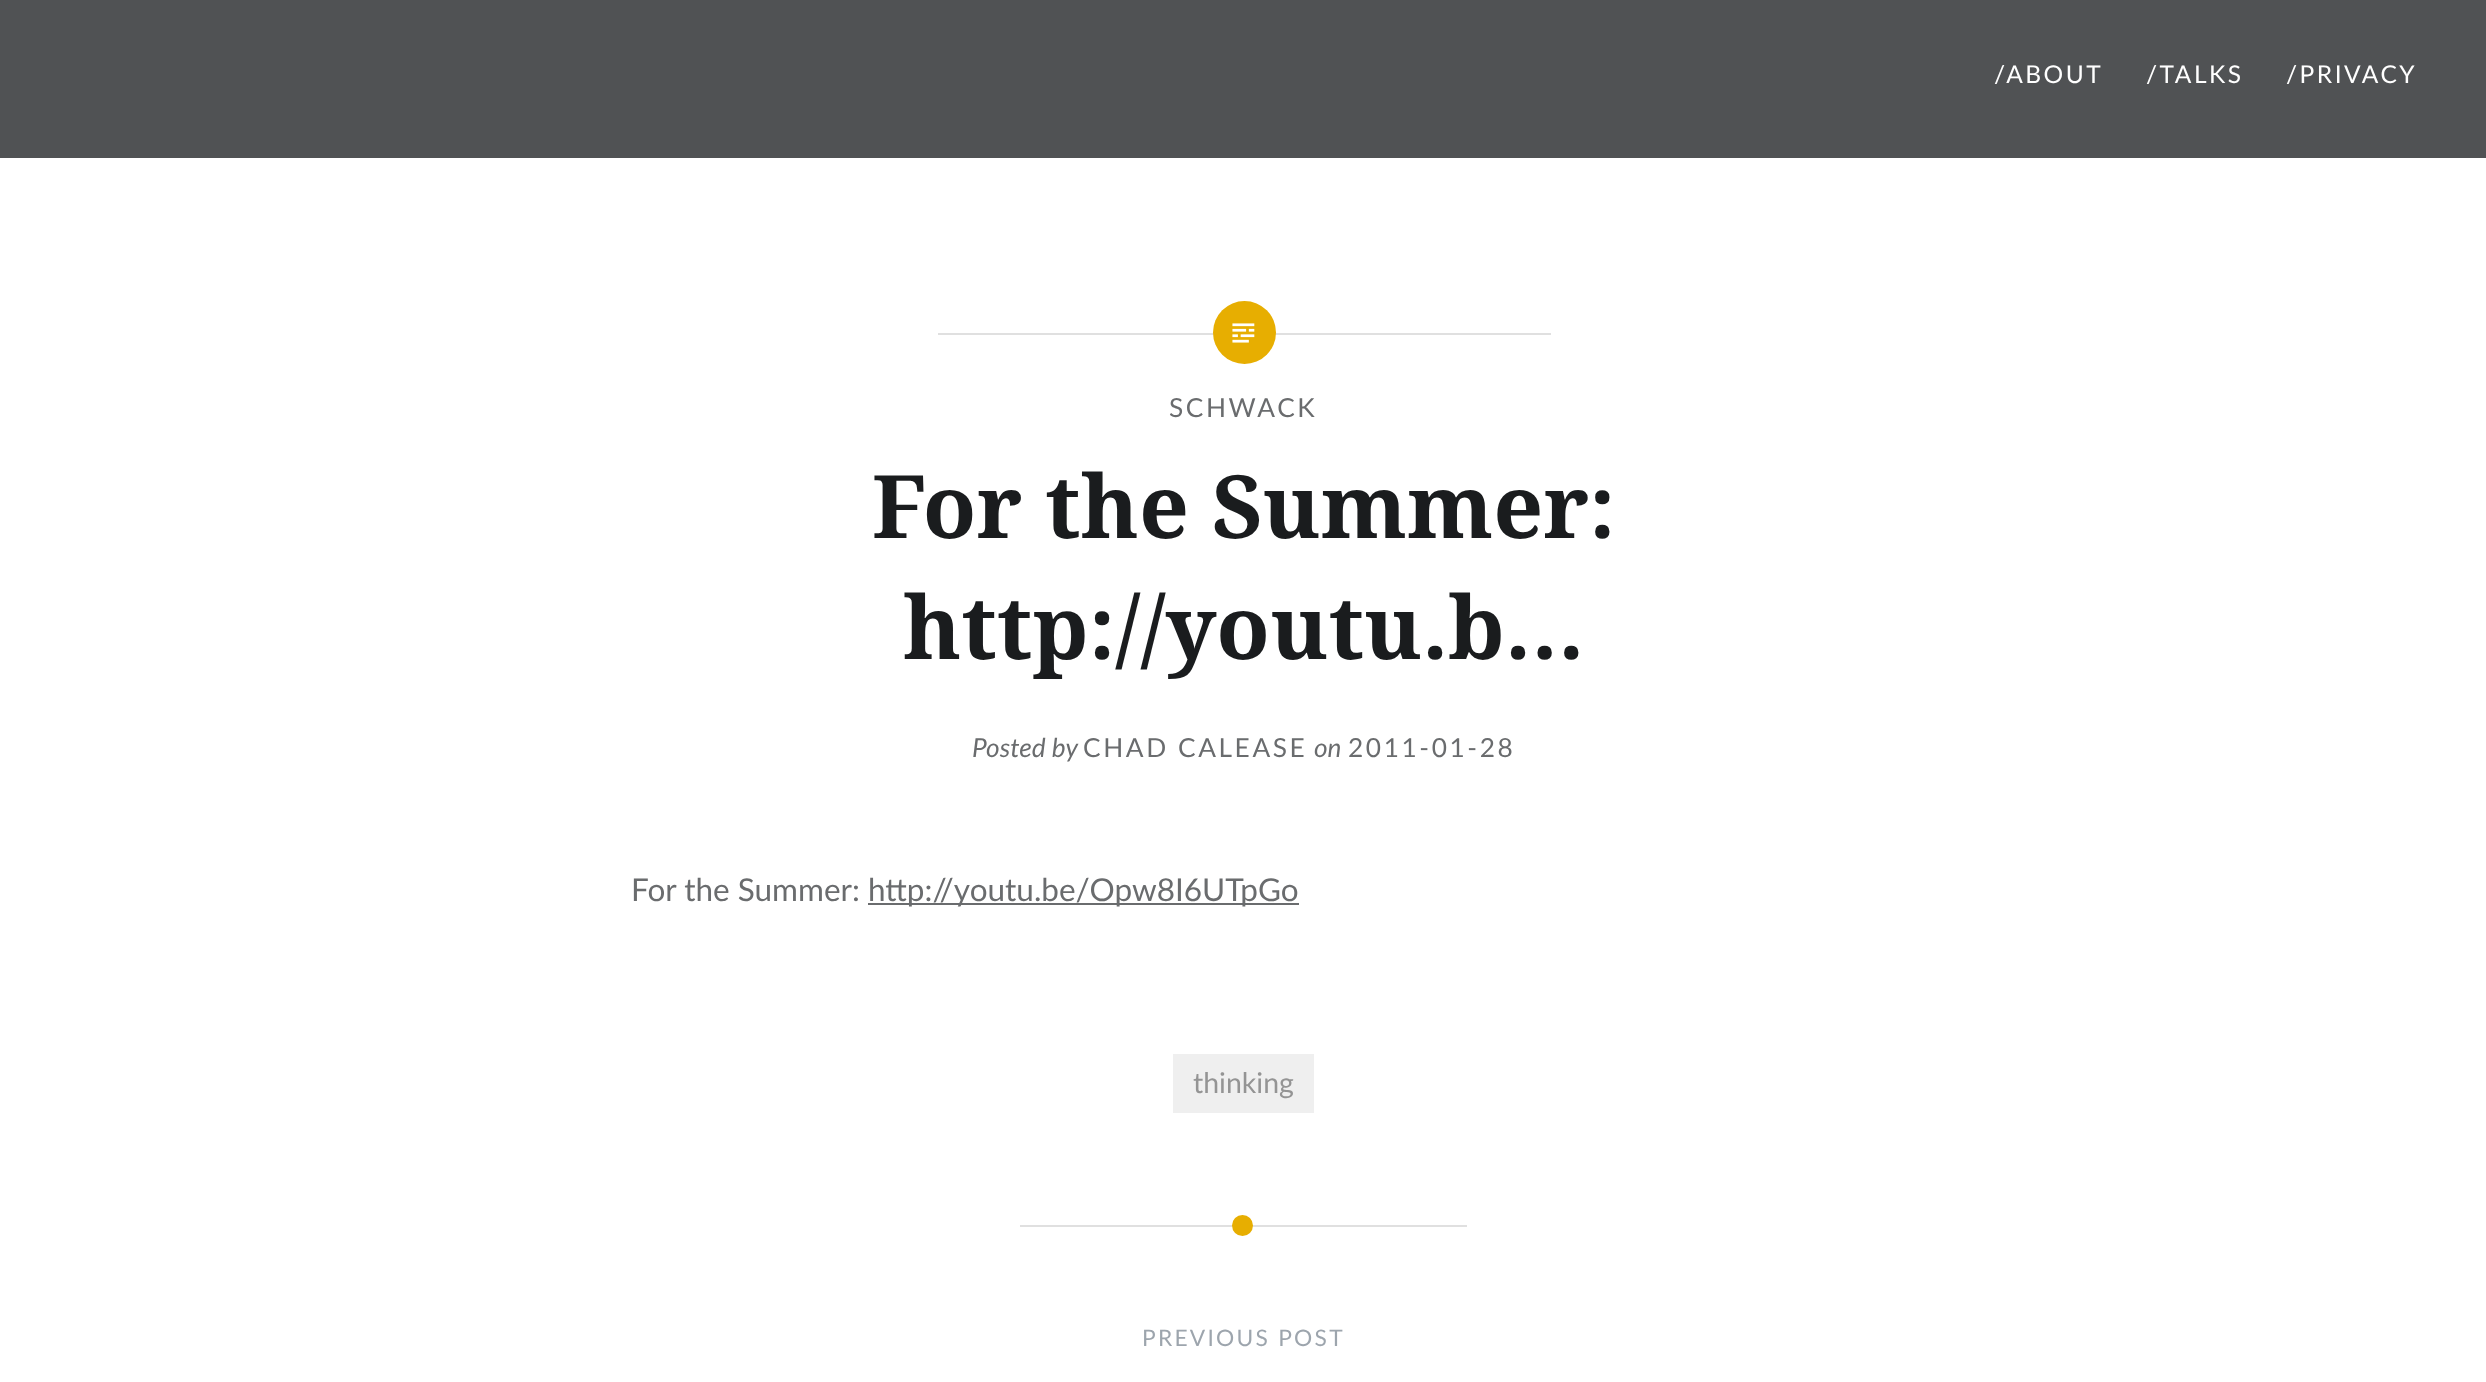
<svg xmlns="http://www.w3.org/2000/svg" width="2486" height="1382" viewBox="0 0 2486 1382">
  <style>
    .t1 { font: 24.5px Lato; letter-spacing: 2.5px; fill: #fff; }
    .t2 { font: 26.25px Lato; letter-spacing: 2.6px; fill: #6a6c6e; }
    .t3 { font: bold 87.5px Noto Serif; fill: #1a1c1e; }
    .t4 { font: italic 26.25px Lato; fill: #6a6c6e; }
    .t5 { font: 31.5px Lato; fill: #6a6c6e; }
    .t6 { font: 28.5px Lato; fill: #949494; }
    .t7 { font: 22.75px Lato; letter-spacing: 2.25px; fill: #9da5ad; }
  </style>
  <rect width="100%" height="100%" fill="#fff"/>
  <rect x="0" y="0" width="2486" height="158" fill="#505254"/>
  <text x="1994" y="83" class="t1">/ABOUT</text>
  <text x="2146" y="83" class="t1">/TALKS</text>
  <text x="2286" y="83" class="t1">/PRIVACY</text>
  <rect x="938" y="333" width="613" height="2" fill="#e0e0e0"/>
  <circle cx="1244.5" cy="332.5" r="31.5" fill="#e7ae01"/>
  <image x="1232" y="323" width="23" height="20" href="images/1.png"/>
  <text x="1169" y="417" class="t2">SCHWACK</text>
  <text x="872" y="538" class="t3">For the Summer:</text>
  <text x="903" y="659" class="t3">http://youtu.b…</text>
  <text x="972" y="757" class="t4">Posted by</text>
  <text x="1083" y="757" class="t2">CHAD CALEASE</text>
  <text x="1314" y="757" class="t4">on</text>
  <text x="1348" y="757" class="t2">2011-01-28</text>
  <text x="631" y="901" class="t5">For the Summer:</text>
  <rect x="868" y="903" width="431" height="2" fill="#6a6c6e"/>
  <text x="868" y="901" class="t5">http://youtu.be/Opw8I6UTpGo</text>
  <rect x="1173" y="1054" width="141" height="59" fill="#efefef"/>
  <text x="1193" y="1093" class="t6">thinking</text>
  <rect x="1020" y="1225" width="447" height="2" fill="#e0e0e0"/>
  <circle cx="1242.5" cy="1225.5" r="10.5" fill="#e7ae01"/>
  <text x="1142" y="1346" class="t7">PREVIOUS POST</text>
</svg>
